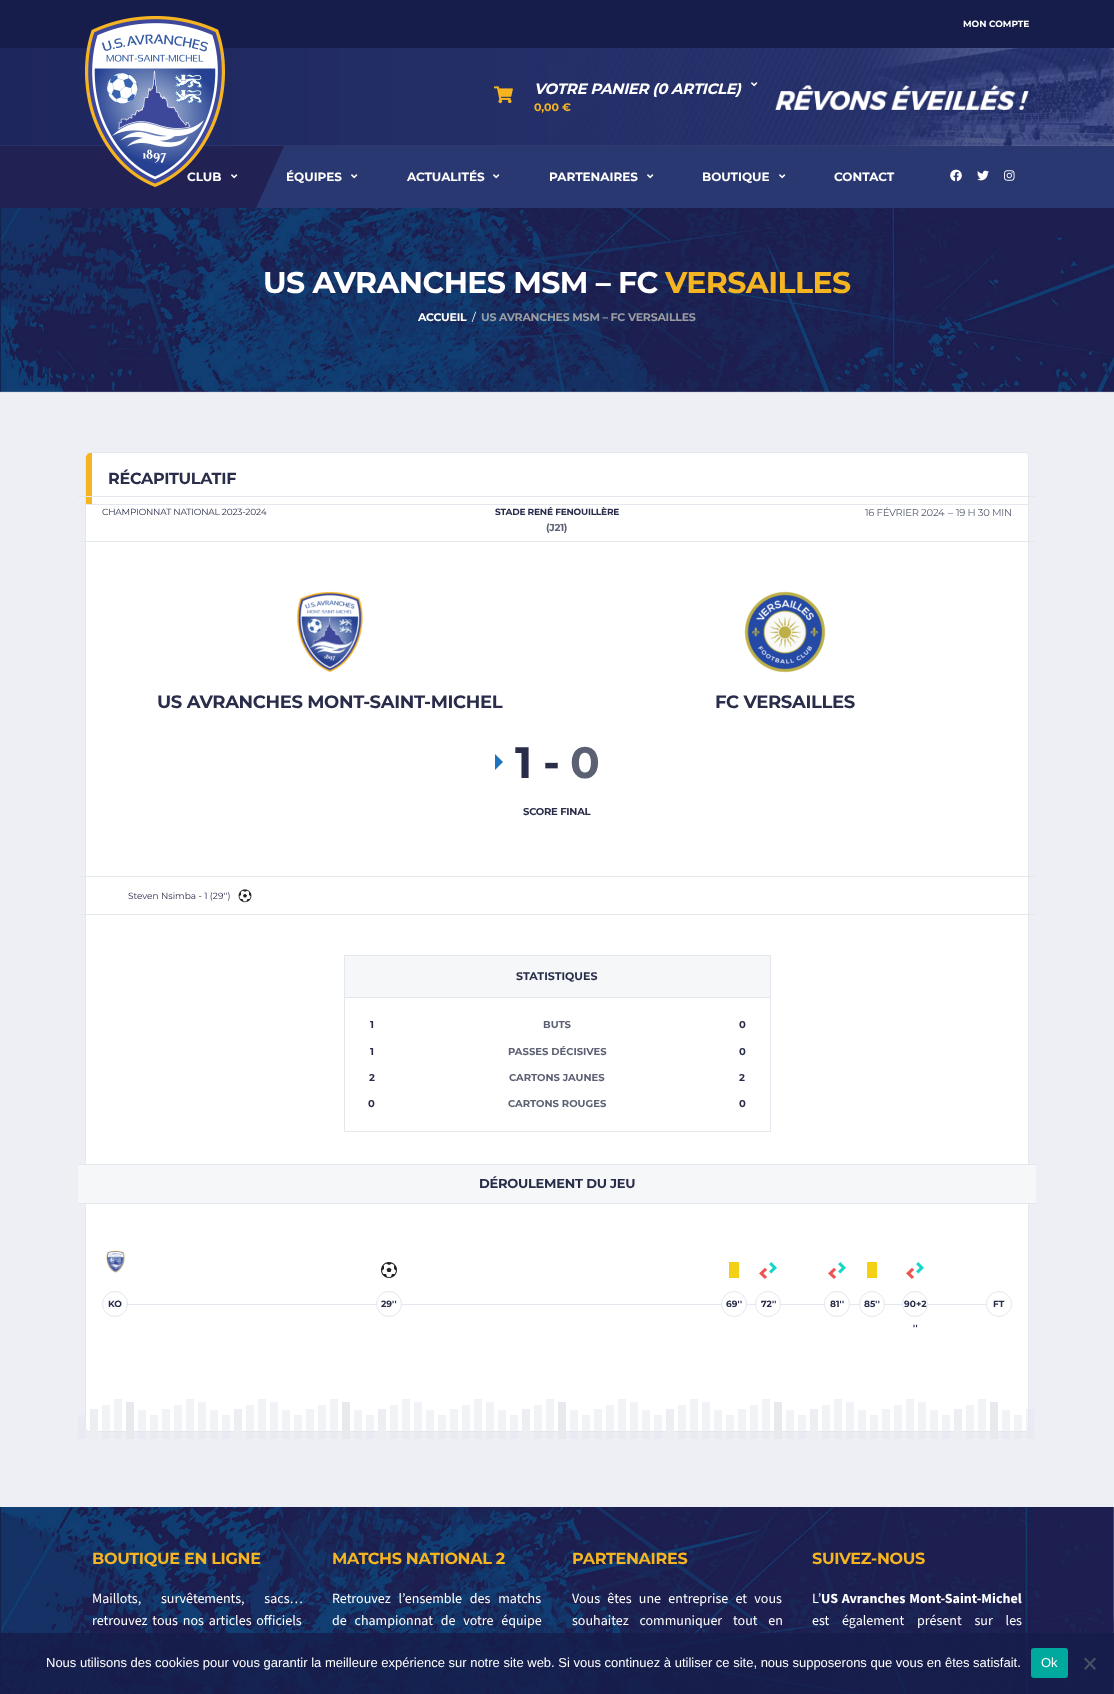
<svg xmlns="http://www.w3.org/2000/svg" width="1114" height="1694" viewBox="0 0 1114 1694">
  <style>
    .t1 { font: bold 9px Montserrat; fill: #fff; }
    .t2 { font: italic bold 15px Montserrat; letter-spacing: -0.3px; fill: #fff; }
    .t3 { font: bold 11px Montserrat; fill: #f5b421; }
    .t4 { font: bold 12px Montserrat; fill: #fff; }
    .t5 { font: bold 30px Montserrat; letter-spacing: -0.6px; fill: #fff; }
    .t6 { font: bold 30px Montserrat; letter-spacing: -0.6px; fill: #f5b421; }
    .t7 { font: bold 11px Montserrat; letter-spacing: -0.25px; fill: #fff; }
    .t8 { font: 11px Montserrat; letter-spacing: -0.25px; fill: #fff; }
    .t9 { font: bold 11px Montserrat; letter-spacing: -0.25px; fill: #9a9da2; }
    .t10 { font: bold 16px Montserrat; letter-spacing: -0.3px; fill: #292d4a; }
    .t11 { font: 9px Montserrat; letter-spacing: -0.2px; fill: #292d4a; }
    .t12 { font: bold 9px Montserrat; letter-spacing: -0.2px; fill: #292d4a; }
    .t13 { font: 10px Montserrat; letter-spacing: -0.25px; fill: #5c6073; }
    .t14 { font: bold 10px Montserrat; letter-spacing: -0.25px; fill: #5c6073; }
    .t15 { font: bold 18px Montserrat; letter-spacing: -0.35px; fill: #292d4a; }
    .t16 { font: bold 44px Montserrat; letter-spacing: -1px; fill: #292d4a; }
    .t17 { font: bold 44px Montserrat; letter-spacing: -1px; fill: #5c6073; }
    .t18 { font: bold 10px Montserrat; letter-spacing: -0.25px; fill: #292d4a; }
    .t19 { font: 9px Montserrat; fill: #292d4a; }
    .t20 { font: bold 11px Montserrat; fill: #292d4a; }
    .t21 { font: bold 10px Montserrat; fill: #292d4a; }
    .t22 { font: bold 10px Montserrat; fill: #5c6073; }
    .t23 { font: bold 13px Montserrat; letter-spacing: -0.25px; fill: #292d4a; }
    .t24 { font: bold 9px Montserrat; fill: #292d4a; }
    .t25 { font: bold 16px Montserrat; letter-spacing: -0.3px; fill: #f5b421; }
    .t26 { font: 14px 'Source Sans 3'; fill: #fff; }
    .t27 { font: bold 14px 'Source Sans 3'; fill: #fff; }
    .t28 { font: 13px Liberation Sans; fill: #fff; }
  </style>
  <rect width="100%" height="100%" fill="#edeff4"/>
  <rect x="0" y="0" width="1114" height="48" fill="#171d4a"/>
  <text x="963" y="27" class="t1">MON COMPTE</text>
  <image x="0" y="48" width="1114" height="98" href="images/1.png"/>
  <text x="534" y="94" class="t2">VOTRE PANIER (0 ARTICLE)</text>
  <image x="751" y="82" width="7" height="5" href="images/2.png"/>
  <image x="494" y="86" width="19" height="18" href="images/3.png"/>
  <text x="534" y="111" class="t3">0,00 €</text>
  <image x="775" y="85" width="254" height="25" href="images/4.png"/>
  <rect x="0" y="146" width="74" height="62" fill="#212153"/>
  <rect x="256" y="146" width="858" height="62" fill="#2a3872"/>
  <path d="M74 146H284L256 208H46Z" fill="#212153"/>
  <text x="187" y="181" class="t4">CLUB</text>
  <image x="85" y="16" width="140" height="171" href="images/5.png"/>
  <image x="231" y="174" width="7" height="5" href="images/6.png"/>
  <text x="286" y="181" class="t4">ÉQUIPES</text>
  <image x="351" y="174" width="7" height="5" href="images/7.png"/>
  <text x="407" y="181" class="t4">ACTUALITÉS</text>
  <image x="493" y="174" width="7" height="5" href="images/7.png"/>
  <text x="549" y="181" class="t4">PARTENAIRES</text>
  <image x="647" y="174" width="7" height="5" href="images/7.png"/>
  <text x="702" y="181" class="t4">BOUTIQUE</text>
  <image x="779" y="174" width="7" height="5" href="images/7.png"/>
  <text x="834" y="181" class="t4">CONTACT</text>
  <image x="950" y="169" width="12" height="13" href="images/8.png"/>
  <image x="977" y="170" width="12" height="11" href="images/9.png"/>
  <image x="1004" y="170" width="11" height="11" href="images/10.png"/>
  <image x="0" y="208" width="1114" height="185" href="images/11.png"/>
  <text x="263" y="293" class="t5">US AVRANCHES MSM – FC</text>
  <text x="665" y="293" class="t6">VERSAILLES</text>
  <text x="418" y="321" class="t7">ACCUEIL</text>
  <text x="472" y="321" class="t8">/</text>
  <text x="481" y="321" class="t9">US AVRANCHES MSM – FC VERSAILLES</text>
  <rect x="85.5" y="452.5" width="943" height="979" rx="3.5" fill="#fff" stroke="#e4e7ed"/>
  <rect x="86" y="504" width="942" height="1" fill="#e4e7ed"/>
  <path d="M90 453H92V504H86V457C86 455 88 453 90 453Z" fill="#f5b421"/>
  <text x="108" y="484" class="t10">RÉCAPITULATIF</text>
  <rect x="78" y="496" width="958" height="1" fill="#e4e7ed"/>
  <rect x="78" y="541" width="958" height="1" fill="#e4e7ed"/>
  <text x="102" y="515" class="t11">CHAMPIONNAT NATIONAL 2023-2024</text>
  <text x="495" y="515" class="t12">STADE RENÉ FENOUILLÈRE</text>
  <text x="865" y="516" class="t13">16 FÉVRIER 2024</text>
  <text x="948" y="516" class="t13">–</text>
  <text x="956" y="516" class="t13">19 H 30 MIN</text>
  <text x="546" y="531" class="t14">(J21)</text>
  <image x="296" y="591" width="67" height="81" href="images/12.png"/>
  <text x="157" y="708" class="t15">US AVRANCHES MONT-SAINT-MICHEL</text>
  <image x="744" y="591" width="82" height="82" href="images/13.png"/>
  <text x="715" y="708" class="t15">FC VERSAILLES</text>
  <path d="M495 770V754L503 762Z" fill="#1e73be"/>
  <text x="515" y="778" class="t16">1</text>
  <text x="543" y="778" class="t16">-</text>
  <text x="570" y="778" class="t17">0</text>
  <text x="523" y="815" class="t18">SCORE FINAL</text>
  <rect x="78" y="876" width="958" height="1" fill="#e4e7ed"/>
  <rect x="78" y="914" width="958" height="1" fill="#e4e7ed"/>
  <text x="128" y="899" class="t19">Steven Nsimba - 1 (29'')</text>
  <image x="238" y="889" width="14" height="14" href="images/14.png"/>
  <rect x="344" y="955" width="427" height="1" fill="#e4e7ed"/>
  <rect x="770" y="955" width="1" height="177" fill="#e4e7ed"/>
  <rect x="344" y="1131" width="427" height="1" fill="#e4e7ed"/>
  <rect x="344" y="955" width="1" height="177" fill="#e4e7ed"/>
  <rect x="345" y="956" width="425" height="41" fill="#f5f7f9"/>
  <rect x="344" y="997" width="427" height="1" fill="#e4e7ed"/>
  <text x="516" y="980" class="t20">STATISTIQUES</text>
  <text x="370" y="1028" class="t21">1</text>
  <text x="543" y="1028" class="t22">BUTS</text>
  <text x="739" y="1028" class="t21">0</text>
  <text x="370" y="1055" class="t21">1</text>
  <text x="508" y="1055" class="t22">PASSES DÉCISIVES</text>
  <text x="739" y="1055" class="t21">0</text>
  <text x="369" y="1081" class="t21">2</text>
  <text x="509" y="1081" class="t22">CARTONS JAUNES</text>
  <text x="739" y="1081" class="t21">2</text>
  <text x="368" y="1107" class="t21">0</text>
  <text x="508" y="1107" class="t22">CARTONS ROUGES</text>
  <text x="739" y="1107" class="t21">0</text>
  <rect x="78" y="1165" width="958" height="38" fill="#f5f7f9"/>
  <rect x="78" y="1164" width="958" height="1" fill="#e4e7ed"/>
  <rect x="78" y="1203" width="958" height="1" fill="#e4e7ed"/>
  <text x="479" y="1188" class="t23">DÉROULEMENT DU JEU</text>
  <image x="106" y="1250" width="19" height="23" href="images/15.png"/>
  <circle cx="115" cy="1304" r="12.5" fill="none" stroke="#e4e7ed"/>
  <text x="108" y="1307" class="t24">KO</text>
  <image x="381" y="1262" width="16" height="16" href="images/16.png"/>
  <rect x="126" y="1304" width="862" height="1" fill="#e4e7ed"/>
  <circle cx="389" cy="1304" r="12.5" fill="#fff" stroke="#e4e7ed"/>
  <text x="381" y="1307" class="t24">29''</text>
  <rect x="729" y="1262" width="10" height="16" fill="#f4d014"/>
  <circle cx="734" cy="1304" r="12.5" fill="#fff" stroke="#e4e7ed"/>
  <text x="726" y="1307" class="t24">69''</text>
  <image x="759" y="1262" width="18" height="17" href="images/17.png"/>
  <circle cx="768" cy="1304" r="12.5" fill="#fff" stroke="#e4e7ed"/>
  <text x="761" y="1307" class="t24">72''</text>
  <image x="828" y="1262" width="18" height="17" href="images/17.png"/>
  <circle cx="837" cy="1304" r="12.5" fill="#fff" stroke="#e4e7ed"/>
  <text x="830" y="1307" class="t24">81''</text>
  <rect x="867" y="1262" width="10" height="16" fill="#f4d014"/>
  <circle cx="872" cy="1304" r="12.5" fill="#fff" stroke="#e4e7ed"/>
  <text x="864" y="1307" class="t24">85''</text>
  <image x="906" y="1262" width="18" height="17" href="images/17.png"/>
  <circle cx="915" cy="1304" r="12.5" fill="#fff" stroke="#e4e7ed"/>
  <text x="904" y="1307" class="t24">90+2</text>
  <text x="913" y="1331" class="t24">''</text>
  <circle cx="999" cy="1304" r="12.5" fill="#fff" stroke="#e4e7ed"/>
  <text x="993" y="1307" class="t24">FT</text>
  <rect x="138" y="1410" width="8" height="29" fill="#e4e7ed80"/>
  <rect x="210" y="1410" width="8" height="29" fill="#e4e7ed80"/>
  <rect x="282" y="1410" width="8" height="29" fill="#e4e7ed80"/>
  <rect x="354" y="1410" width="8" height="29" fill="#e4e7ed80"/>
  <rect x="426" y="1410" width="8" height="29" fill="#e4e7ed80"/>
  <rect x="498" y="1410" width="8" height="29" fill="#e4e7ed80"/>
  <rect x="570" y="1410" width="8" height="29" fill="#e4e7ed80"/>
  <rect x="642" y="1410" width="8" height="29" fill="#e4e7ed80"/>
  <rect x="714" y="1410" width="8" height="29" fill="#e4e7ed80"/>
  <rect x="786" y="1410" width="8" height="29" fill="#e4e7ed80"/>
  <rect x="858" y="1410" width="8" height="29" fill="#e4e7ed80"/>
  <rect x="930" y="1410" width="8" height="29" fill="#e4e7ed80"/>
  <rect x="1002" y="1410" width="8" height="29" fill="#e4e7ed80"/>
  <rect x="126" y="1402" width="8" height="37" fill="#e8e9ec"/>
  <rect x="198" y="1402" width="8" height="37" fill="#e4e7ed80"/>
  <rect x="270" y="1402" width="8" height="37" fill="#e4e7ed80"/>
  <rect x="342" y="1402" width="8" height="37" fill="#e8e9ec"/>
  <rect x="414" y="1402" width="8" height="37" fill="#e4e7ed80"/>
  <rect x="486" y="1402" width="8" height="37" fill="#e4e7ed80"/>
  <rect x="558" y="1402" width="8" height="37" fill="#e8e9ec"/>
  <rect x="630" y="1402" width="8" height="37" fill="#e4e7ed80"/>
  <rect x="702" y="1402" width="8" height="37" fill="#e4e7ed80"/>
  <rect x="774" y="1402" width="8" height="37" fill="#e8e9ec"/>
  <rect x="846" y="1402" width="8" height="37" fill="#e4e7ed80"/>
  <rect x="918" y="1402" width="8" height="37" fill="#e4e7ed80"/>
  <rect x="990" y="1402" width="8" height="37" fill="#e8e9ec"/>
  <rect x="114" y="1399" width="8" height="40" fill="#e4e7ed80"/>
  <rect x="186" y="1399" width="8" height="40" fill="#e4e7ed80"/>
  <rect x="258" y="1399" width="8" height="40" fill="#e4e7ed80"/>
  <rect x="330" y="1399" width="8" height="40" fill="#e4e7ed80"/>
  <rect x="402" y="1399" width="8" height="40" fill="#e4e7ed80"/>
  <rect x="474" y="1399" width="8" height="40" fill="#e4e7ed80"/>
  <rect x="546" y="1399" width="8" height="40" fill="#e4e7ed80"/>
  <rect x="618" y="1399" width="8" height="40" fill="#e4e7ed80"/>
  <rect x="690" y="1399" width="8" height="40" fill="#e4e7ed80"/>
  <rect x="762" y="1399" width="8" height="40" fill="#e4e7ed80"/>
  <rect x="834" y="1399" width="8" height="40" fill="#e4e7ed80"/>
  <rect x="906" y="1399" width="8" height="40" fill="#e4e7ed80"/>
  <rect x="978" y="1399" width="8" height="40" fill="#e4e7ed80"/>
  <rect x="102" y="1405" width="8" height="34" fill="#e4e7ed80"/>
  <rect x="174" y="1405" width="8" height="34" fill="#e4e7ed80"/>
  <rect x="246" y="1405" width="8" height="34" fill="#e4e7ed80"/>
  <rect x="318" y="1405" width="8" height="34" fill="#e4e7ed80"/>
  <rect x="390" y="1405" width="8" height="34" fill="#e4e7ed80"/>
  <rect x="462" y="1405" width="8" height="34" fill="#e4e7ed80"/>
  <rect x="534" y="1405" width="8" height="34" fill="#e4e7ed80"/>
  <rect x="606" y="1405" width="8" height="34" fill="#e4e7ed80"/>
  <rect x="678" y="1405" width="8" height="34" fill="#e4e7ed80"/>
  <rect x="750" y="1405" width="8" height="34" fill="#e4e7ed80"/>
  <rect x="822" y="1405" width="8" height="34" fill="#e4e7ed80"/>
  <rect x="894" y="1405" width="8" height="34" fill="#e4e7ed80"/>
  <rect x="966" y="1405" width="8" height="34" fill="#e4e7ed80"/>
  <rect x="90" y="1409" width="8" height="30" fill="#edeef1"/>
  <rect x="162" y="1409" width="8" height="30" fill="#e4e7ed80"/>
  <rect x="234" y="1409" width="8" height="30" fill="#edeef1"/>
  <rect x="306" y="1409" width="8" height="30" fill="#e4e7ed80"/>
  <rect x="378" y="1409" width="8" height="30" fill="#edeef1"/>
  <rect x="450" y="1409" width="8" height="30" fill="#e4e7ed80"/>
  <rect x="522" y="1409" width="8" height="30" fill="#edeef1"/>
  <rect x="594" y="1409" width="8" height="30" fill="#e4e7ed80"/>
  <rect x="666" y="1409" width="8" height="30" fill="#edeef1"/>
  <rect x="738" y="1409" width="8" height="30" fill="#e4e7ed80"/>
  <rect x="810" y="1409" width="8" height="30" fill="#edeef1"/>
  <rect x="882" y="1409" width="8" height="30" fill="#e4e7ed80"/>
  <rect x="954" y="1409" width="8" height="30" fill="#edeef1"/>
  <rect x="1026" y="1409" width="8" height="30" fill="#e4e7ed80"/>
  <rect x="78" y="1415" width="8" height="24" fill="#e4e7ed80"/>
  <rect x="150" y="1415" width="8" height="24" fill="#e4e7ed80"/>
  <rect x="222" y="1415" width="8" height="24" fill="#e4e7ed80"/>
  <rect x="294" y="1415" width="8" height="24" fill="#e4e7ed80"/>
  <rect x="366" y="1415" width="8" height="24" fill="#e4e7ed80"/>
  <rect x="438" y="1415" width="8" height="24" fill="#e4e7ed80"/>
  <rect x="510" y="1415" width="8" height="24" fill="#e4e7ed80"/>
  <rect x="582" y="1415" width="8" height="24" fill="#e4e7ed80"/>
  <rect x="654" y="1415" width="8" height="24" fill="#e4e7ed80"/>
  <rect x="726" y="1415" width="8" height="24" fill="#e4e7ed80"/>
  <rect x="798" y="1415" width="8" height="24" fill="#e4e7ed80"/>
  <rect x="870" y="1415" width="8" height="24" fill="#e4e7ed80"/>
  <rect x="942" y="1415" width="8" height="24" fill="#e4e7ed80"/>
  <rect x="1014" y="1415" width="8" height="24" fill="#e4e7ed80"/>
  <rect x="1044" y="1620" width="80" height="60" rx="2" fill="#808080" filter="blur(2.5px)"/>
  <image x="0" y="1507" width="1114" height="187" href="images/18.png"/>
  <text x="92" y="1564" class="t25">BOUTIQUE EN LIGNE</text>
  <text x="92" y="1603" word-spacing="17" class="t26">Maillots, survêtements, sacs…</text>
  <text x="92" y="1625" word-spacing="2" class="t26">retrouvez tous nos articles officiels</text>
  <text x="332" y="1564" class="t25">MATCHS NATIONAL 2</text>
  <text x="332" y="1603" word-spacing="5" class="t26">Retrouvez l’ensemble des matchs</text>
  <text x="332" y="1625" word-spacing="5" class="t26">de championnat de votre équipe</text>
  <text x="572" y="1564" class="t25">PARTENAIRES</text>
  <text x="572" y="1603" word-spacing="4.5" class="t26">Vous êtes une entreprise et vous</text>
  <text x="572" y="1625" word-spacing="8" class="t26">souhaitez communiquer tout en</text>
  <text x="812" y="1564" class="t25">SUIVEZ-NOUS</text>
  <text x="812" y="1603" class="t26">L’</text>
  <text x="821" y="1603" word-spacing="1" class="t27">US Avranches Mont-Saint-Michel</text>
  <text x="812" y="1625" word-spacing="10" class="t26">est également présent sur les</text>
  <rect x="0" y="1633" width="1114" height="61" fill="#171d4acc"/>
  <text x="46" y="1667" class="t28">Nous utilisons des cookies pour vous garantir la meilleure expérience sur notre site web. Si vous continuez à utiliser ce site, nous supposerons que vous en êtes satisfait.</text>
  <rect x="1031" y="1648" width="37" height="30" rx="3" fill="#00a99d"/>
  <text x="1041" y="1667" class="t28">Ok</text>
  <path d="M1094.5 1657.5L1096 1659L1085.5 1670L1084 1668.5Z" fill="#4c4f66"/>
  <path d="M1084 1659L1085.5 1657.5L1096 1668.5L1094.5 1670Z" fill="#4c4f66"/>
</svg>
